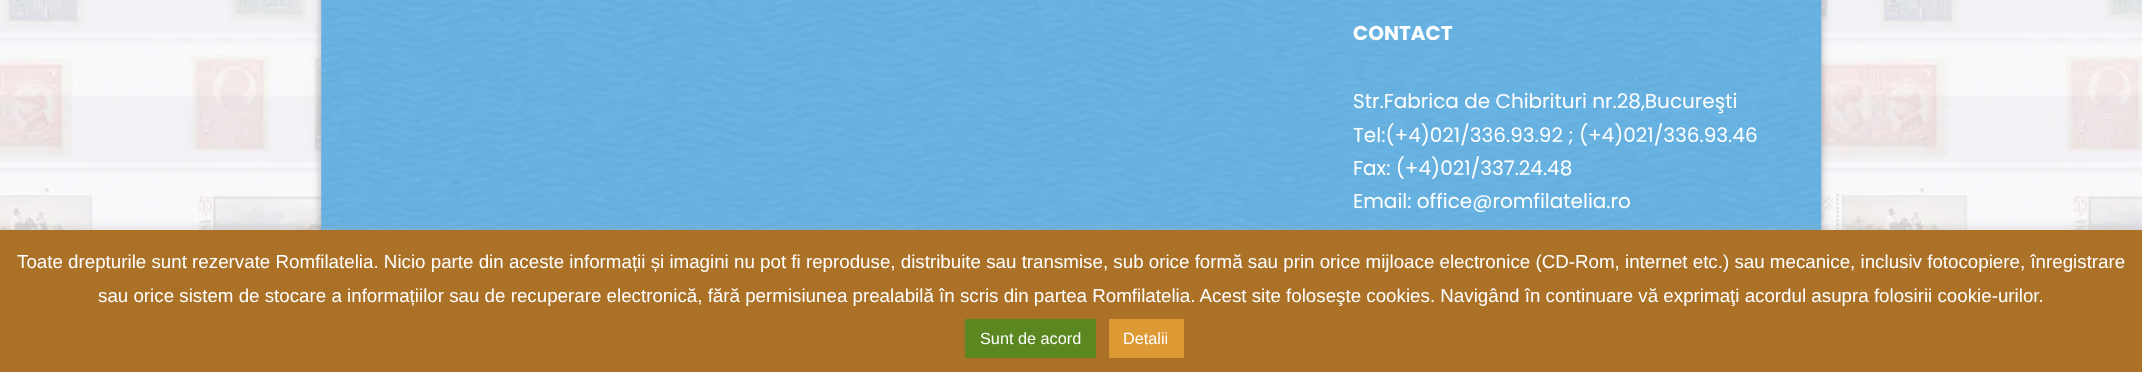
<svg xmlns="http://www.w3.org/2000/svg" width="2142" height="372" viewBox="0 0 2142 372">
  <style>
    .t1 { font: bold 20px Poppins; fill: #fff; }
    .t2 { font: 20px Poppins; fill: #fff; }
    .t3 { font: 18.75px Liberation Sans; fill: #fff; }
    .t4 { font: 16.25px Liberation Sans; fill: #fff; }
  </style>
  <rect width="100%" height="100%" fill="#fff"/>
  <image x="0" y="0" width="2142" height="230" href="images/1.png"/>
  <rect x="321" y="-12" width="1500" height="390" fill="#0000004d" filter="blur(4px)"/>
  <image x="321" y="0" width="1501" height="230" href="images/2.png"/>
  <text x="1353" y="40" class="t1">CONTACT</text>
  <text x="1353" y="108" class="t2">Str.Fabrica de Chibrituri nr.28,Bucureşti</text>
  <text x="1353" y="142" class="t2">Tel:(+4)021/336.93.92 ; (+4)021/336.93.46</text>
  <text x="1353" y="175" class="t2">Fax: (+4)021/337.24.48</text>
  <text x="1353" y="208" class="t2">Email: office@romfilatelia.ro</text>
  <rect x="0" y="229" width="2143" height="142" fill="#acabab4d" filter="blur(6px)"/>
  <rect x="0" y="230" width="2142" height="142" fill="#aa7127"/>
  <text x="17" y="268" class="t3">Toate drepturile sunt rezervate Romfilatelia. Nicio parte din aceste informații și imagini nu pot fi reproduse, distribuite sau transmise, sub orice formă sau prin orice mijloace electronice (CD-Rom, internet etc.) sau mecanice, inclusiv fotocopiere, înregistrare</text>
  <text x="98" y="302" class="t3">sau orice sistem de stocare a informațiilor sau de recuperare electronică, fără permisiunea prealabilă în scris din partea Romfilatelia. Acest site foloseşte cookies. Navigând în continuare vă exprimaţi acordul asupra folosirii cookie-urilor.</text>
  <rect x="965" y="319" width="131" height="39" fill="#5a871f"/>
  <text x="980" y="344" class="t4">Sunt de acord</text>
  <rect x="1109" y="319" width="75" height="39" fill="#d93"/>
  <text x="1123" y="344" class="t4">Detalii</text>
</svg>
